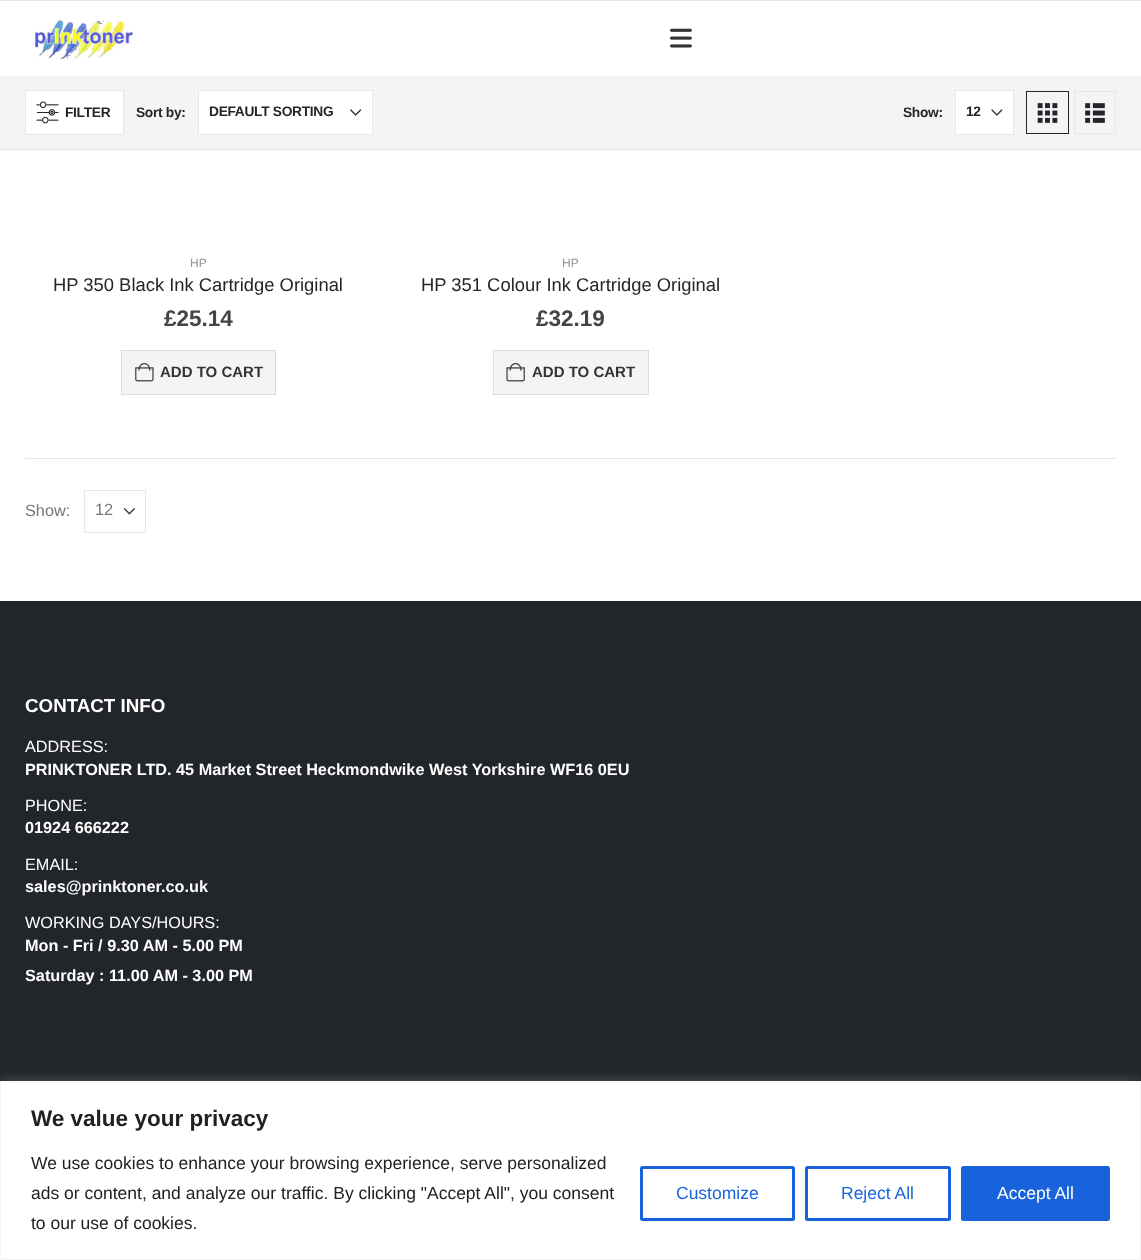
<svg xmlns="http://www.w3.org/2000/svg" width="1141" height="1260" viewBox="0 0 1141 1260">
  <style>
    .t1 { font: bold 13.75px Liberation Sans; letter-spacing: -0.3px; fill: #222529; }
    .t2 { font: 12px Liberation Sans; fill: #929292; }
    .t3 { font: 18.4px Liberation Sans; fill: #222529; }
    .t4 { font: bold 22.5px Liberation Sans; fill: #444; }
    .t5 { font: bold 15px Liberation Sans; fill: #333; }
    .t6 { font: 16.25px Liberation Sans; fill: #777; }
    .t7 { font: bold 18.75px Liberation Sans; fill: #fff; }
    .t8 { font: 16.25px Liberation Sans; fill: #fff; }
    .t9 { font: bold 16.25px Liberation Sans; fill: #fff; }
    .t10 { font: bold 22.5px Liberation Sans; fill: #212121; }
    .t11 { font: 17.5px Liberation Sans; fill: #212121; }
    .t12 { font: 17.5px Liberation Sans; fill: #1863dc; }
    .t13 { font: 17.5px Liberation Sans; fill: #fff; }
  </style>
  <rect width="100%" height="100%" fill="#fff"/>
  <rect x="0" y="0" width="1141" height="1" fill="#e7e7e7"/>
  <image x="34" y="20" width="100" height="39" href="images/1.png"/>
  <image x="670" y="28" width="22" height="20" href="images/2.png"/>
  <rect x="0" y="76" width="1141" height="73" fill="#f4f4f4"/>
  <rect x="0" y="149" width="1141" height="1" fill="#e7e7e7"/>
  <rect x="25.5" y="90.5" width="98" height="44" fill="#fff" stroke="#e7e7e7"/>
  <image x="36" y="101" width="23" height="23" href="images/3.png"/>
  <text x="65" y="117" class="t1">FILTER</text>
  <text x="136" y="117" class="t1">Sort by:</text>
  <rect x="199" y="91" width="173" height="43" fill="#fff"/>
  <image x="350" y="109" width="12" height="7" href="images/4.png"/>
  <rect x="198.5" y="90.5" width="174" height="44" fill="none" stroke="#e7e7e7"/>
  <text x="209" y="116" class="t1">DEFAULT SORTING</text>
  <text x="903" y="117" class="t1">Show:</text>
  <rect x="956" y="91" width="57" height="43" fill="#fff"/>
  <image x="991" y="109" width="12" height="7" href="images/5.png"/>
  <rect x="955.5" y="90.5" width="58" height="44" fill="none" stroke="#e7e7e7"/>
  <text x="966" y="116" class="t1">12</text>
  <rect x="1026.5" y="91.5" width="42" height="42" fill="none" stroke="#222529"/>
  <image x="1037" y="103" width="21" height="20" href="images/6.png"/>
  <rect x="1074.5" y="91.5" width="41" height="42" fill="none" stroke="#e7e7e7"/>
  <image x="1085" y="103" width="20" height="20" href="images/7.png"/>
  <text x="190" y="267" class="t2">HP</text>
  <text x="53" y="291" class="t3">HP 350 Black Ink Cartridge Original</text>
  <text x="164" y="326" class="t4">£25.14</text>
  <rect x="121.5" y="350.5" width="154" height="44" fill="#f4f4f4" stroke="#ddd"/>
  <image x="135" y="363" width="19" height="19" href="images/8.png"/>
  <text x="160" y="377" class="t5">ADD TO CART</text>
  <text x="562" y="267" class="t2">HP</text>
  <text x="421" y="291" class="t3">HP 351 Colour Ink Cartridge Original</text>
  <text x="536" y="326" class="t4">£32.19</text>
  <rect x="493.5" y="350.5" width="155" height="44" fill="#f4f4f4" stroke="#ddd"/>
  <image x="506" y="363" width="19" height="19" href="images/9.png"/>
  <text x="532" y="377" class="t5">ADD TO CART</text>
  <rect x="25" y="458" width="1091" height="1" fill="#e7e7e7"/>
  <text x="25" y="516" class="t6">Show:</text>
  <image x="123" y="508" width="12" height="7" href="images/10.png"/>
  <rect x="84.5" y="490.5" width="61" height="42" fill="none" stroke="#e7e7e7"/>
  <text x="95" y="515" class="t6">12</text>
  <rect x="0" y="601" width="1141" height="480" fill="#222529"/>
  <text x="25" y="712" class="t7">CONTACT INFO</text>
  <text x="25" y="752" class="t8">ADDRESS:</text>
  <text x="25" y="775" class="t9">PRINKTONER LTD. 45 Market Street Heckmondwike West Yorkshire WF16 0EU</text>
  <text x="25" y="811" class="t8">PHONE:</text>
  <text x="25" y="833" class="t9">01924 666222</text>
  <text x="25" y="870" class="t8">EMAIL:</text>
  <text x="25" y="892" class="t9">sales@prinktoner.co.uk</text>
  <text x="25" y="928" class="t8">WORKING DAYS/HOURS:</text>
  <text x="25" y="951" class="t9">Mon - Fri / 9.30 AM - 5.00 PM</text>
  <text x="25" y="981" class="t9">Saturday : 11.00 AM - 3.00 PM</text>
  <rect x="0" y="1080" width="1141" height="179" fill="#acabab4d" filter="blur(6px)"/>
  <rect x="0.5" y="1081.5" width="1140" height="178" fill="#fff" stroke="#f4f4f4"/>
  <text x="31" y="1126" class="t10">We value your privacy</text>
  <text x="31" y="1169" class="t11">We use cookies to enhance your browsing experience, serve personalized</text>
  <text x="31" y="1199" class="t11">ads or content, and analyze our traffic. By clicking "Accept All", you consent</text>
  <text x="31" y="1229" class="t11">to our use of cookies.</text>
  <rect x="641.5" y="1167.5" width="152" height="52" rx="1" fill="none" stroke="#1863dc" stroke-width="3"/>
  <text x="676" y="1199" class="t12">Customize</text>
  <rect x="806.5" y="1167.5" width="143" height="52" rx="1" fill="none" stroke="#1863dc" stroke-width="3"/>
  <text x="841" y="1199" class="t12">Reject All</text>
  <rect x="962.5" y="1167.5" width="146" height="52" rx="1" fill="#1863dc" stroke="#1863dc" stroke-width="3"/>
  <text x="997" y="1199" class="t13">Accept All</text>
</svg>
